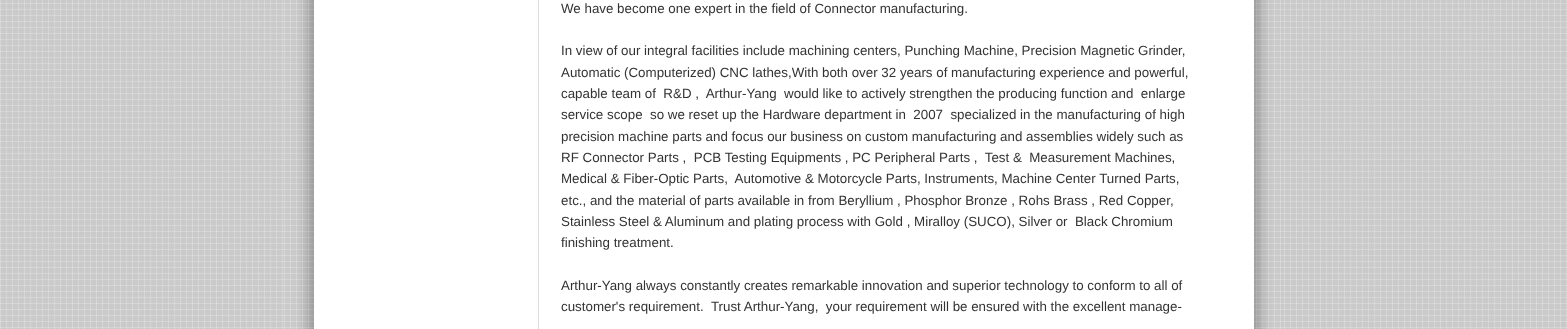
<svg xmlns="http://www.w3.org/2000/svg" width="1567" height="329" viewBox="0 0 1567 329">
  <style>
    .t1 { font: 13.35px Liberation Sans; fill: #333; }
  </style>
  <rect width="100%" height="100%" fill="#fff"/>
  <image x="0" y="0" width="1567" height="329" href="images/1.png"/>
  <image x="284" y="0" width="30" height="329" href="images/2.png"/>
  <rect x="314" y="0" width="940" height="329" fill="#fff"/>
  <rect x="538" y="0" width="1" height="329" fill="#ddd"/>
  <text x="561" y="13" class="t1">We have become one expert in the field of Connector manufacturing.</text>
  <text x="561" y="55" class="t1">In view of our integral facilities include machining centers, Punching Machine, Precision Magnetic Grinder,</text>
  <text x="561" y="77" class="t1">Automatic (Computerized) CNC lathes,With both over 32 years of manufacturing experience and powerful,</text>
  <text x="561" y="98" class="t1" xml:space="preserve">capable team of  R&amp;D ,  Arthur-Yang  would like to actively strengthen the producing function and  enlarge</text>
  <text x="561" y="119" class="t1" xml:space="preserve">service scope  so we reset up the Hardware department in  2007  specialized in the manufacturing of high</text>
  <text x="561" y="141" class="t1">precision machine parts and focus our business on custom manufacturing and assemblies widely such as</text>
  <text x="561" y="162" class="t1" xml:space="preserve">RF Connector Parts ,  PCB Testing Equipments , PC Peripheral Parts ,  Test &amp;  Measurement Machines,</text>
  <text x="561" y="183" class="t1" xml:space="preserve">Medical &amp; Fiber-Optic Parts,  Automotive &amp; Motorcycle Parts, Instruments, Machine Center Turned Parts,</text>
  <text x="561" y="205" class="t1">etc., and the material of parts available in from Beryllium , Phosphor Bronze , Rohs Brass , Red Copper,</text>
  <text x="561" y="226" class="t1" xml:space="preserve">Stainless Steel &amp; Aluminum and plating process with Gold , Miralloy (SUCO), Silver or  Black Chromium</text>
  <text x="561" y="247" class="t1">finishing treatment.</text>
  <text x="561" y="290" class="t1">Arthur-Yang always constantly creates remarkable innovation and superior technology to conform to all of</text>
  <text x="561" y="311" class="t1" xml:space="preserve">customer's requirement.  Trust Arthur-Yang,  your requirement will be ensured with the excellent manage-</text>
  <image x="1254" y="0" width="27" height="329" href="images/3.png"/>
</svg>
